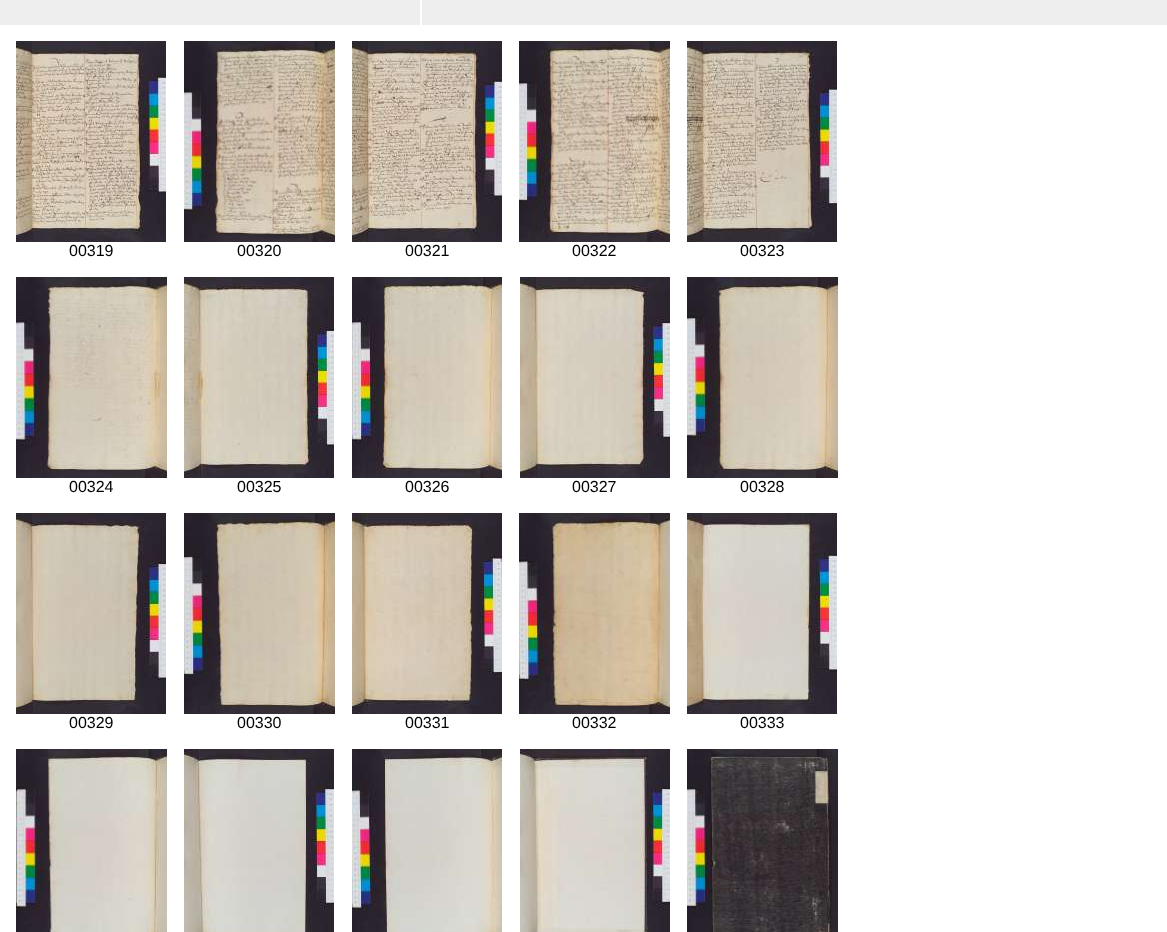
<svg xmlns="http://www.w3.org/2000/svg" width="1167" height="932" viewBox="0 0 1167 932">
  <style>
    .t1 { font: 16px Liberation Sans; fill: #000; }
  </style>
  <rect width="100%" height="100%" fill="#fff"/>
  <rect x="0" y="0" width="1167" height="25" fill="#eee"/>
  <rect x="420" y="0" width="2" height="25" fill="#fff"/>
  <image x="16" y="41" width="150" height="201" href="images/1.png"/>
  <text x="69" y="256" class="t1">00319</text>
  <image x="184" y="41" width="151" height="201" href="images/2.png"/>
  <text x="237" y="256" class="t1">00320</text>
  <image x="352" y="41" width="150" height="201" href="images/3.png"/>
  <text x="405" y="256" class="t1">00321</text>
  <image x="519" y="41" width="151" height="201" href="images/4.png"/>
  <text x="572" y="256" class="t1">00322</text>
  <image x="687" y="41" width="150" height="201" href="images/5.png"/>
  <text x="740" y="256" class="t1">00323</text>
  <image x="16" y="277" width="151" height="201" href="images/6.png"/>
  <text x="69" y="492" class="t1">00324</text>
  <image x="184" y="277" width="150" height="201" href="images/7.png"/>
  <text x="237" y="492" class="t1">00325</text>
  <image x="352" y="277" width="150" height="201" href="images/8.png"/>
  <text x="405" y="492" class="t1">00326</text>
  <image x="520" y="277" width="150" height="201" href="images/9.png"/>
  <text x="572" y="492" class="t1">00327</text>
  <image x="687" y="277" width="151" height="201" href="images/10.png"/>
  <text x="740" y="492" class="t1">00328</text>
  <image x="16" y="513" width="150" height="201" href="images/11.png"/>
  <text x="69" y="728" class="t1">00329</text>
  <image x="184" y="513" width="151" height="201" href="images/12.png"/>
  <text x="237" y="728" class="t1">00330</text>
  <image x="352" y="513" width="150" height="201" href="images/13.png"/>
  <text x="405" y="728" class="t1">00331</text>
  <image x="519" y="513" width="151" height="201" href="images/14.png"/>
  <text x="572" y="728" class="t1">00332</text>
  <image x="687" y="513" width="150" height="201" href="images/15.png"/>
  <text x="740" y="728" class="t1">00333</text>
  <image x="16" y="749" width="151" height="183" href="images/16.png"/>
  <image x="184" y="749" width="150" height="183" href="images/17.png"/>
  <image x="352" y="749" width="150" height="183" href="images/18.png"/>
  <image x="520" y="749" width="150" height="183" href="images/19.png"/>
  <image x="687" y="749" width="151" height="183" href="images/20.png"/>
</svg>
